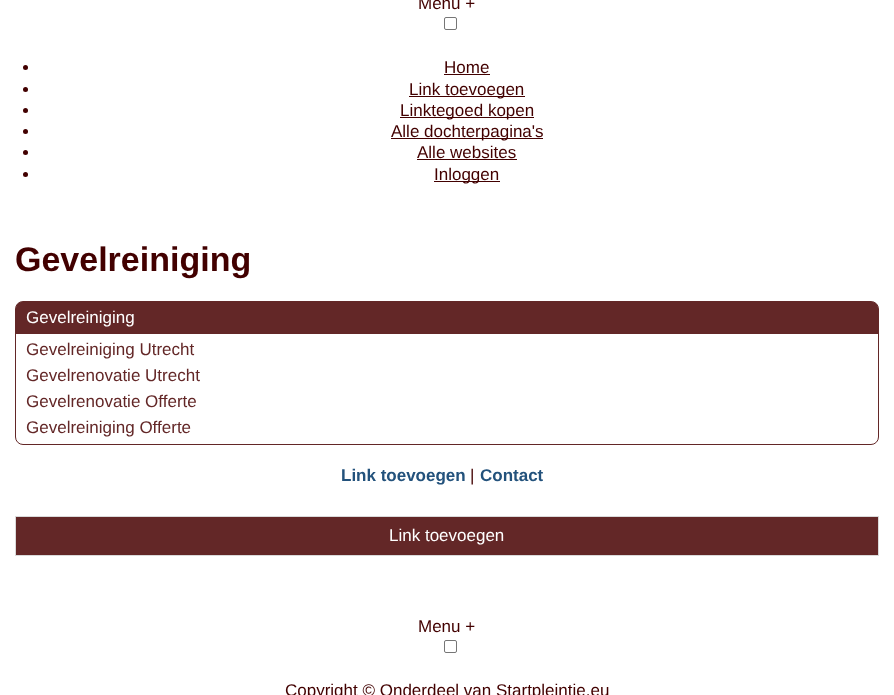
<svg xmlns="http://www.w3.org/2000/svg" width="894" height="695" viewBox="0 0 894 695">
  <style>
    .t1 { font: 17px Liberation Sans; fill: #420000; }
    .t2 { font: bold 34px Liberation Sans; fill: #420000; }
    .t3 { font: 17px Liberation Sans; fill: #fff; }
    .t4 { font: 17px Liberation Sans; fill: #632727; }
    .t5 { font: bold 17px Liberation Sans; fill: #23527c; }
  </style>
  <rect width="100%" height="100%" fill="#fff"/>
  <text x="418" y="9" class="t1">Menu +</text>
  <rect x="444.5" y="17.5" width="12" height="12" rx="1.5" fill="none" stroke="#767676"/>
  <circle cx="25.5" cy="67.5" r="2.5" fill="#420000"/>
  <text x="444" y="73" class="t1">Home</text>
  <rect x="444" y="74" width="46" height="1" fill="#420000"/>
  <circle cx="25.5" cy="89.5" r="2.5" fill="#420000"/>
  <rect x="409" y="96" width="116" height="1" fill="#420000"/>
  <text x="409" y="95" class="t1">Link toevoegen</text>
  <circle cx="25.5" cy="110.5" r="2.5" fill="#420000"/>
  <rect x="400" y="117" width="134" height="1" fill="#420000"/>
  <text x="400" y="116" class="t1">Linktegoed kopen</text>
  <circle cx="25.5" cy="131.5" r="2.5" fill="#420000"/>
  <rect x="391" y="138" width="152" height="1" fill="#420000"/>
  <text x="391" y="137" class="t1">Alle dochterpagina's</text>
  <circle cx="25.5" cy="152.5" r="2.5" fill="#420000"/>
  <text x="417" y="158" class="t1">Alle websites</text>
  <rect x="417" y="159" width="100" height="1" fill="#420000"/>
  <circle cx="25.5" cy="174.5" r="2.5" fill="#420000"/>
  <rect x="434" y="181" width="66" height="1" fill="#420000"/>
  <text x="434" y="180" class="t1">Inloggen</text>
  <text x="15" y="271" class="t2">Gevelreiniging</text>
  <rect x="15.5" y="301.5" width="863" height="143" rx="7.5" fill="none" stroke="#632727"/>
  <path d="M22 302H872C875.5 302 878 304.5 878 308V334H16V308C16 304.5 18.5 302 22 302Z" fill="#632727"/>
  <text x="26" y="323" class="t3">Gevelreiniging</text>
  <text x="26" y="355" class="t4">Gevelreiniging Utrecht</text>
  <text x="26" y="381" class="t4">Gevelrenovatie Utrecht</text>
  <text x="26" y="407" class="t4">Gevelrenovatie Offerte</text>
  <text x="26" y="433" class="t4">Gevelreiniging Offerte</text>
  <text x="341" y="481" class="t5">Link toevoegen</text>
  <text x="470" y="481" class="t1">|</text>
  <text x="480" y="481" class="t5">Contact</text>
  <rect x="15.5" y="516.5" width="863" height="39" fill="#632727" stroke="#dadada"/>
  <text x="389" y="541" class="t3">Link toevoegen</text>
  <text x="418" y="632" class="t1">Menu +</text>
  <rect x="444.5" y="640.5" width="12" height="12" rx="1.5" fill="none" stroke="#767676"/>
  <text x="285" y="696" class="t1">Copyright © Onderdeel van Startpleintje.eu</text>
</svg>
